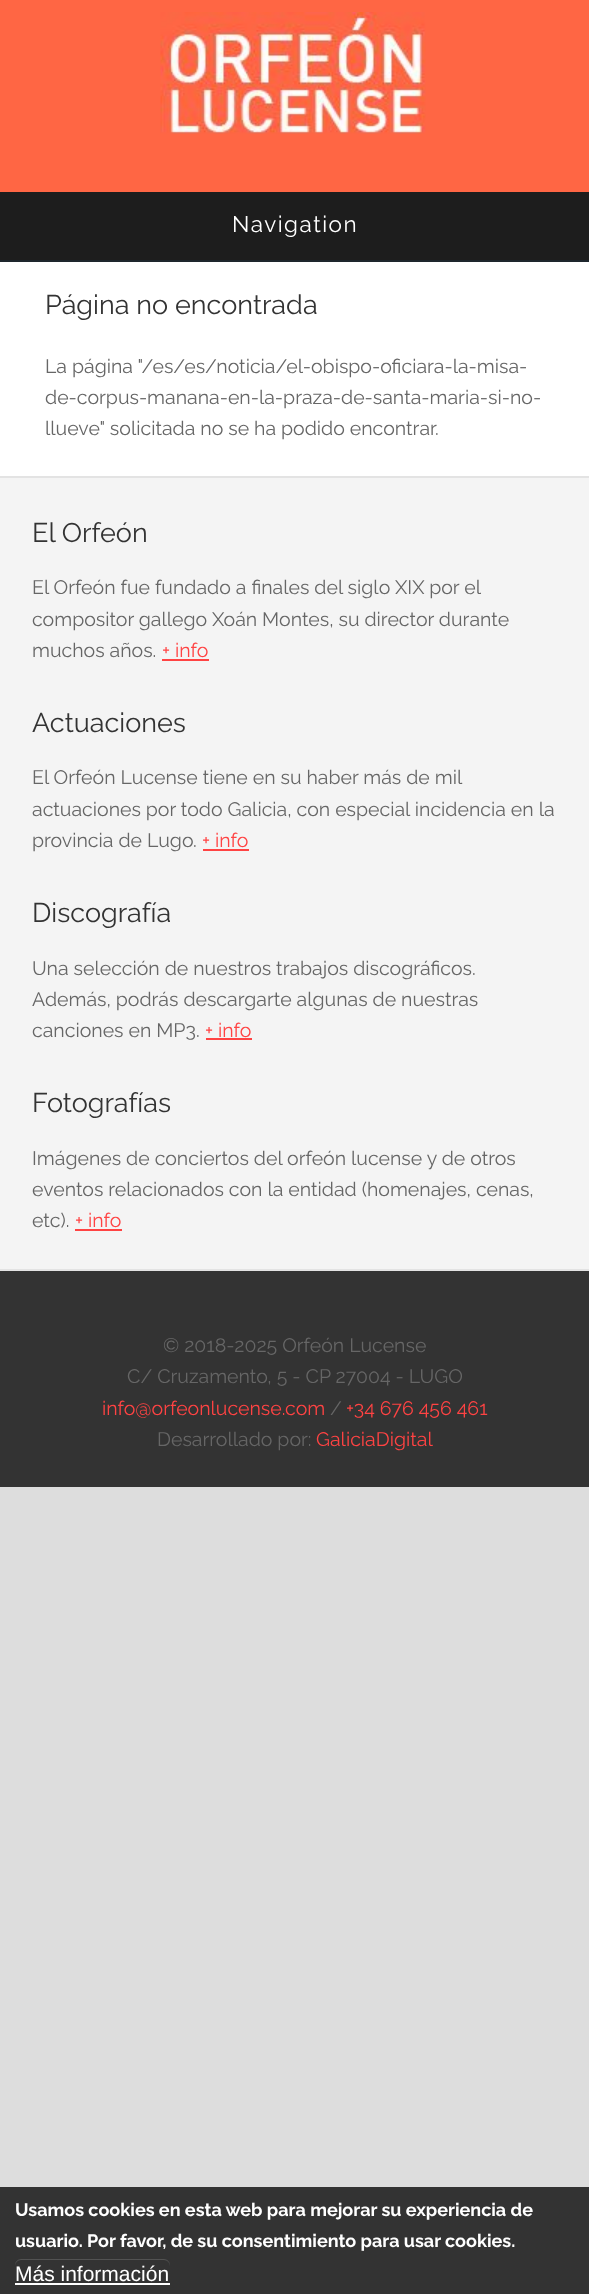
<svg xmlns="http://www.w3.org/2000/svg" width="589" height="2294" viewBox="0 0 589 2294">
  <style>
    .t1 { font: 22.5px Raleway; letter-spacing: 1.5px; fill: #fff; }
    .t2 { font: 27px Raleway; fill: #333; }
    .t3 { font: 19.5px Raleway; fill: #666; }
    .t4 { font: 19.5px Raleway; fill: #ff4343; }
    .t5 { font: bold 18px Raleway; fill: #fff; }
    .t6 { font: 21px Liberation Sans; fill: #fff; }
  </style>
  <rect width="100%" height="100%" fill="#ddd"/>
  <rect x="0" y="262" width="589" height="214" fill="#fff"/>
  <rect x="0" y="0" width="589" height="192" fill="#f64"/>
  <image x="160" y="12" width="266" height="122" href="images/1.png"/>
  <rect x="0" y="192" width="589" height="68" fill="#1d1d1d"/>
  <rect x="0" y="260" width="589" height="2" fill="#1e262d"/>
  <text x="232" y="232" class="t1">Navigation</text>
  <text x="45" y="314" class="t2">Página no encontrada</text>
  <text x="45" y="373" class="t3">La página "/es/es/noticia/el-obispo-oficiara-la-misa-</text>
  <text x="45" y="404" class="t3">de-corpus-manana-en-la-praza-de-santa-maria-si-no-</text>
  <text x="45" y="435" class="t3">llueve" solicitada no se ha podido encontrar.</text>
  <rect x="0" y="478" width="589" height="791" fill="#f4f4f4"/>
  <rect x="0" y="476" width="589" height="2" fill="#e3e3e3"/>
  <rect x="0" y="1269" width="589" height="2" fill="#e3e3e3"/>
  <text x="32" y="542" class="t2">El Orfeón</text>
  <text x="32" y="594" class="t3">El Orfeón fue fundado a finales del siglo XIX por el</text>
  <text x="32" y="626" class="t3">compositor gallego Xoán Montes, su director durante</text>
  <text x="32" y="657" class="t3">muchos años.</text>
  <text x="162" y="657" class="t4">+ info</text>
  <rect x="162" y="659" width="47" height="2" fill="#ff4343"/>
  <text x="32" y="732" class="t2">Actuaciones</text>
  <text x="32" y="784" class="t3">El Orfeón Lucense tiene en su haber más de mil</text>
  <text x="32" y="816" class="t3">actuaciones por todo Galicia, con especial incidencia en la</text>
  <text x="32" y="847" class="t3">provincia de Lugo.</text>
  <text x="202" y="847" class="t4">+ info</text>
  <rect x="203" y="849" width="46" height="2" fill="#ff4343"/>
  <text x="32" y="922" class="t2">Discografía</text>
  <text x="32" y="975" class="t3">Una selección de nuestros trabajos discográficos.</text>
  <text x="32" y="1006" class="t3">Además, podrás descargarte algunas de nuestras</text>
  <text x="32" y="1037" class="t3">canciones en MP3.</text>
  <text x="205" y="1037" class="t4">+ info</text>
  <rect x="206" y="1038" width="46" height="2" fill="#ff4343"/>
  <text x="32" y="1112" class="t2">Fotografías</text>
  <text x="32" y="1165" class="t3">Imágenes de conciertos del orfeón lucense y de otros</text>
  <text x="32" y="1196" class="t3">eventos relacionados con la entidad (homenajes, cenas,</text>
  <text x="32" y="1227" class="t3">etc).</text>
  <text x="75" y="1227" class="t4">+ info</text>
  <rect x="75" y="1229" width="47" height="2" fill="#ff4343"/>
  <rect x="0" y="1271" width="589" height="216" fill="#333"/>
  <text x="163" y="1352" class="t3">© 2018-2025 Orfeón Lucense</text>
  <text x="127" y="1383" class="t3">C/ Cruzamento, 5 - CP 27004 - LUGO</text>
  <text x="102" y="1415" class="t4">info@orfeonlucense.com</text>
  <text x="330" y="1415" class="t3">/</text>
  <text x="346" y="1415" class="t4">+34 676 456 461</text>
  <text x="157" y="1446" class="t3">Desarrollado por:</text>
  <text x="316" y="1446" class="t4">GaliciaDigital</text>
  <rect x="0" y="2187" width="589" height="107" fill="#333"/>
  <text x="15" y="2216" class="t5">Usamos cookies en esta web para mejorar su experiencia de</text>
  <text x="15" y="2247" class="t5">usuario. Por favor, de su consentimiento para usar cookies.</text>
  <path d="M21 2260H164C167 2260 170 2263 170 2266V2265C170 2262 167 2259 164 2259H21C18 2259 15 2262 15 2265V2266C15 2263 18 2260 21 2260Z" fill="#525252"/>
  <text x="15" y="2281" class="t6">Más información</text>
  <rect x="15" y="2283" width="155" height="2" fill="#fff"/>
</svg>
